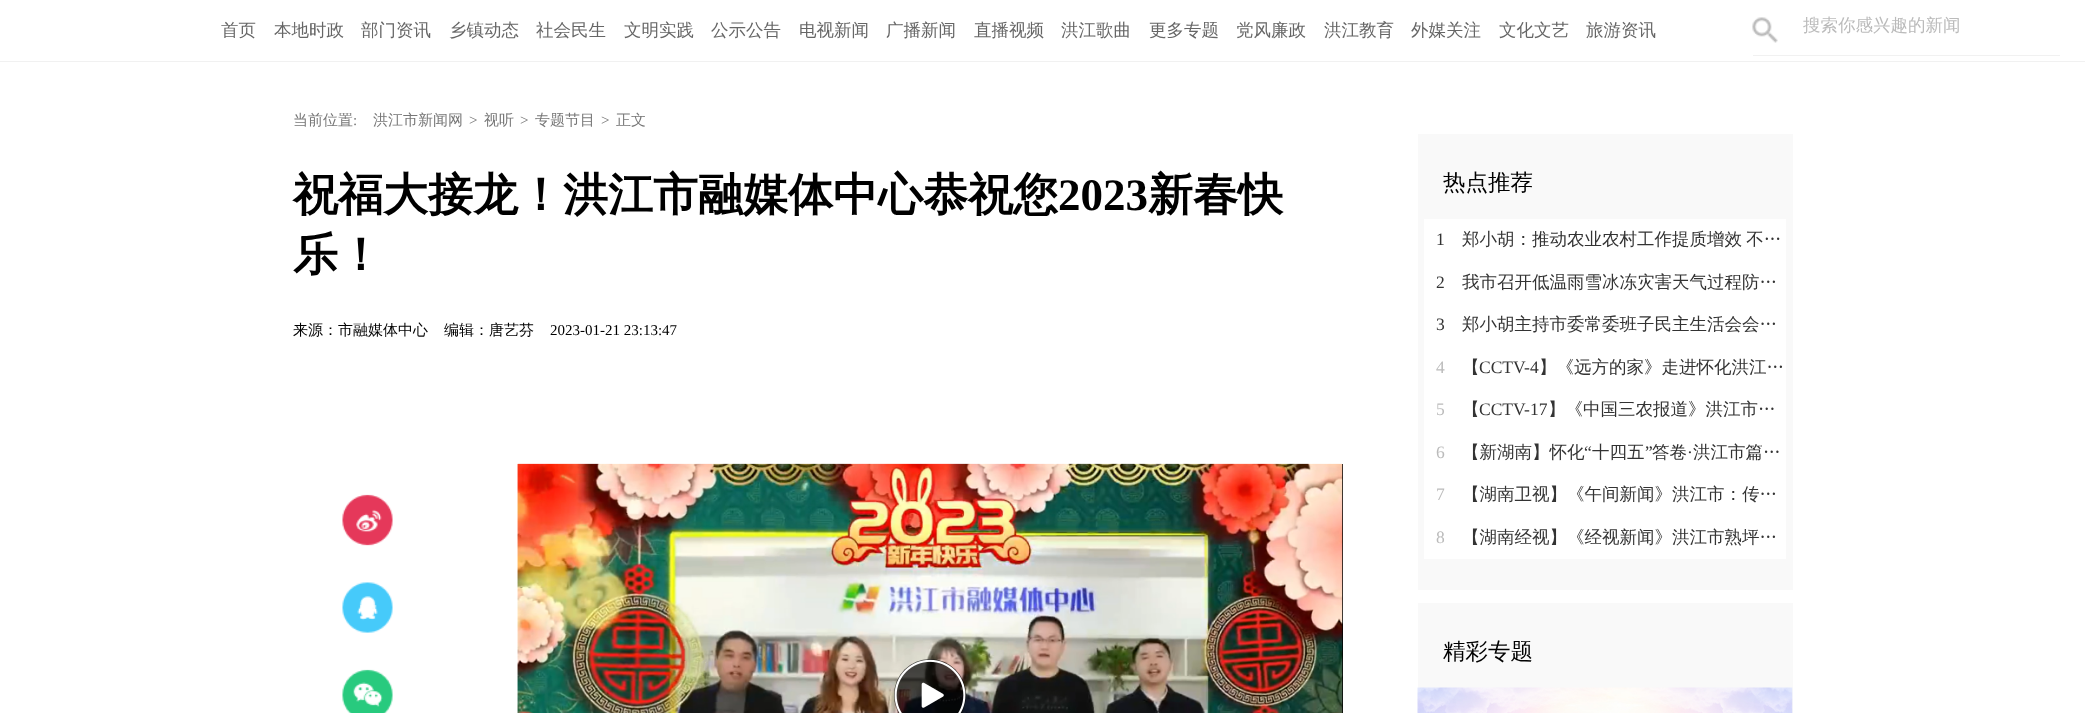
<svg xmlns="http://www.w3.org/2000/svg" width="2085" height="713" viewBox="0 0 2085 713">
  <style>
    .t1 { font: 500 17.5px WenQuanYi Zen Hei; fill: #666; }
    .t2 { font: 500 17.5px WenQuanYi Zen Hei; fill: #bbb; }
    .t3 { font: 500 15px WenQuanYi Zen Hei; fill: #777; }
    .t4 { font: 15px Liberation Serif; fill: #777; }
    .t5 { font: bold 45px WenQuanYi Zen Hei; fill: #000; }
    .t6 { font: bold 45px Liberation Serif; fill: #000; }
    .t7 { font: 500 15px WenQuanYi Zen Hei; fill: #000; }
    .t8 { font: 15px Liberation Serif; fill: #000; }
    .t9 { font: 500 22.5px WenQuanYi Zen Hei; fill: #000; }
    .t10 { font: 17.5px Liberation Serif; fill: #333; }
    .t11 { font: 500 17.5px WenQuanYi Zen Hei; fill: #333; }
    .t12 { font: 17.5px Liberation Serif; fill: #bbb; }
  </style>
  <defs>
    <clipPath id="clip1"><path d="M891 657H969V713H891ZM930 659C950 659 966 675 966 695C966 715 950 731 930 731C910 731 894 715 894 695C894 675 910 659 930 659Z" clip-rule="evenodd"/></clipPath>
  </defs>
  <rect width="100%" height="100%" fill="#fff"/>
  <rect x="0" y="61" width="2085" height="1" fill="#f1f1f1"/>
  <text x="221" y="36" class="t1">首页</text>
  <text x="274" y="36" class="t1">本地时政</text>
  <text x="361" y="36" class="t1">部门资讯</text>
  <text x="449" y="36" class="t1">乡镇动态</text>
  <text x="536" y="36" class="t1">社会民生</text>
  <text x="624" y="36" class="t1">文明实践</text>
  <text x="711" y="36" class="t1">公示公告</text>
  <text x="799" y="36" class="t1">电视新闻</text>
  <text x="886" y="36" class="t1">广播新闻</text>
  <text x="974" y="36" class="t1">直播视频</text>
  <text x="1061" y="36" class="t1">洪江歌曲</text>
  <text x="1149" y="36" class="t1">更多专题</text>
  <text x="1236" y="36" class="t1">党风廉政</text>
  <text x="1324" y="36" class="t1">洪江教育</text>
  <text x="1411" y="36" class="t1">外媒关注</text>
  <text x="1499" y="36" class="t1">文化文艺</text>
  <text x="1586" y="36" class="t1">旅游资讯</text>
  <rect x="1753" y="55" width="307" height="1" fill="#f1f1f1"/>
  <image x="1752" y="17" width="26" height="26" href="images/1.png"/>
  <text x="1803" y="31" class="t2">搜索你感兴趣的新闻</text>
  <text x="293" y="125" class="t3">当前位置</text>
  <text x="353" y="125" class="t4">:</text>
  <text x="373" y="125" class="t3">洪江市新闻网</text>
  <text x="469" y="125" class="t4">&gt;</text>
  <text x="484" y="125" class="t3">视听</text>
  <text x="520" y="125" class="t4">&gt;</text>
  <text x="535" y="125" class="t3">专题节目</text>
  <text x="601" y="125" class="t4">&gt;</text>
  <text x="616" y="125" class="t3">正文</text>
  <text x="293" y="210" class="t5">祝福大接龙！洪江市融媒体中心恭祝您</text>
  <text x="1058" y="210" class="t6">2023</text>
  <text x="1148" y="210" class="t5">新春快</text>
  <text x="293" y="270" class="t5">乐！</text>
  <text x="293" y="335" class="t7">来源：市融媒体中心</text>
  <text x="444" y="335" class="t7">编辑：唐艺芬</text>
  <text x="550" y="335" class="t8">2023-01-21 23:13:47</text>
  <image x="342" y="494" width="51" height="52" href="images/2.png"/>
  <image x="342" y="582" width="51" height="51" href="images/3.png"/>
  <image x="342" y="669" width="51" height="44" href="images/4.png"/>
  <image x="517" y="463" width="825" height="250" href="images/5.png"/>
  <rect x="1342" y="464" width="1" height="249" fill="#000"/>
  <image x="517" y="463" width="826" height="250" href="images/6.png"/>
  <g clip-path="url(#clip1)">
    <rect x="894" y="660" width="72" height="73" rx="36" fill="#00000026" filter="blur(0.5px)"/>
  </g>
  <circle cx="930" cy="695" r="36" fill="#000000b3"/>
  <image x="894" y="659" width="72" height="54" href="images/7.png"/>
  <rect x="1418" y="134" width="375" height="456" fill="#f9f9f9"/>
  <text x="1443" y="190" class="t9">热点推荐</text>
  <rect x="1424" y="219" width="362" height="340" fill="#fff"/>
  <text x="1436" y="245" class="t10">1</text>
  <text x="1462" y="245" word-spacing="-1" class="t11">郑小胡：推动农业农村工作提质增效 不…</text>
  <text x="1436" y="288" class="t10">2</text>
  <text x="1462" y="288" class="t11">我市召开低温雨雪冰冻灾害天气过程防…</text>
  <text x="1436" y="330" class="t10">3</text>
  <text x="1462" y="330" class="t11">郑小胡主持市委常委班子民主生活会会…</text>
  <text x="1436" y="373" class="t12">4</text>
  <text x="1462" y="373" class="t11">【</text>
  <text x="1479" y="373" class="t10">CCTV-4</text>
  <text x="1539" y="373" class="t11">】《远方的家》走进怀化洪江…</text>
  <text x="1436" y="415" class="t12">5</text>
  <text x="1462" y="415" class="t11">【</text>
  <text x="1479" y="415" class="t10">CCTV-17</text>
  <text x="1548" y="415" class="t11">】《中国三农报道》洪江市…</text>
  <text x="1436" y="458" class="t12">6</text>
  <text x="1462" y="458" class="t11">【新湖南】怀化</text>
  <text x="1584" y="458" class="t10">“</text>
  <text x="1592" y="458" class="t11">十四五</text>
  <text x="1645" y="458" class="t10">”</text>
  <text x="1652" y="458" class="t11">答卷</text>
  <text x="1693" y="458" word-spacing="-1" class="t11">洪江市篇…</text>
  <text x="1687" y="458" class="t10">·</text>
  <text x="1436" y="500" class="t12">7</text>
  <text x="1462" y="500" class="t11">【湖南卫视】《午间新闻》洪江市：传…</text>
  <text x="1436" y="543" class="t12">8</text>
  <text x="1462" y="543" word-spacing="-1" class="t11">【湖南经视】《经视新闻》洪江市熟坪…</text>
  <rect x="1418" y="603" width="375" height="110" fill="#f9f9f9"/>
  <text x="1443" y="659" class="t9">精彩专题</text>
  <image x="1417" y="687" width="376" height="26" href="images/8.png"/>
</svg>
